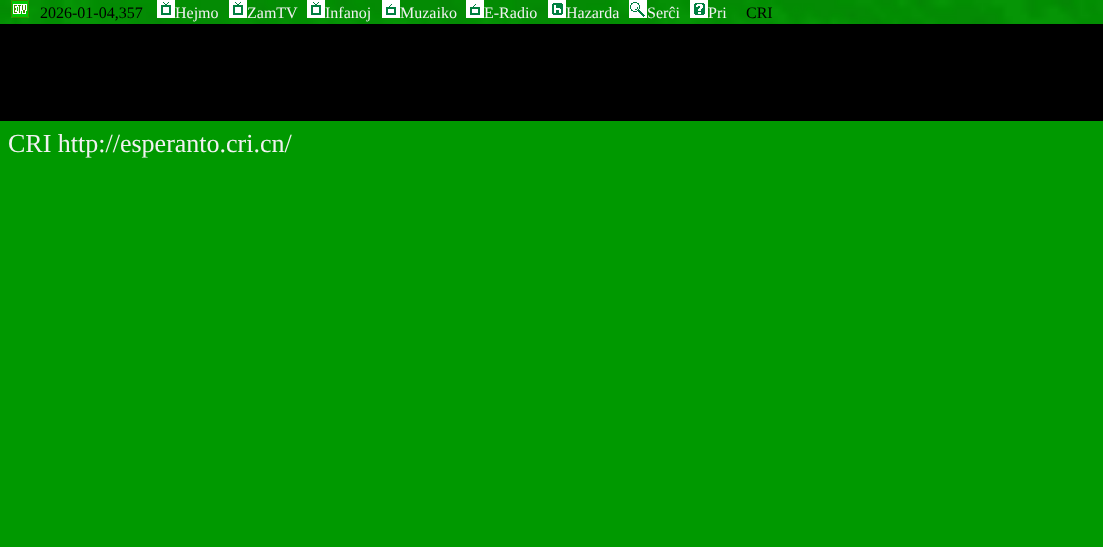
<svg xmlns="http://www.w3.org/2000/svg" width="1103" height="547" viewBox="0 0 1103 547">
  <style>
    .t1 { font: 16px Liberation Serif; fill: #000; }
    .t2 { font: 16px Liberation Serif; fill: #f1f1f1; }
    .t3 { font: 26px Liberation Serif; fill: #f1f1f1; }
  </style>
  <rect width="100%" height="100%" fill="#000"/>
  <image x="0" y="0" width="1103" height="24" href="images/1.png"/>
  <image x="11" y="0" width="18" height="18" href="images/2.png"/>
  <text x="40" y="18" class="t1">2026-01-04,357</text>
  <image x="157" y="0" width="18" height="18" href="images/3.png"/>
  <text x="175" y="18" class="t2">Hejmo</text>
  <image x="229" y="0" width="18" height="18" href="images/3.png"/>
  <text x="247" y="18" class="t2">ZamTV</text>
  <image x="307" y="0" width="18" height="18" href="images/3.png"/>
  <text x="325" y="18" class="t2">Infanoj</text>
  <image x="382" y="0" width="18" height="18" href="images/4.png"/>
  <text x="400" y="18" class="t2">Muzaiko</text>
  <image x="466" y="0" width="18" height="18" href="images/4.png"/>
  <text x="484" y="18" class="t2">E-Radio</text>
  <image x="548" y="0" width="18" height="18" href="images/5.png"/>
  <text x="566" y="18" class="t2">Hazarda</text>
  <image x="629" y="0" width="18" height="18" href="images/6.png"/>
  <text x="647" y="18" class="t2">Serĉi</text>
  <image x="690" y="0" width="18" height="18" href="images/7.png"/>
  <text x="708" y="18" class="t2">Pri</text>
  <text x="746" y="18" class="t1">CRI</text>
  <rect x="0" y="121" width="1103" height="426" fill="#090"/>
  <text x="8" y="152" class="t3">CRI http://esperanto.cri.cn/</text>
</svg>
